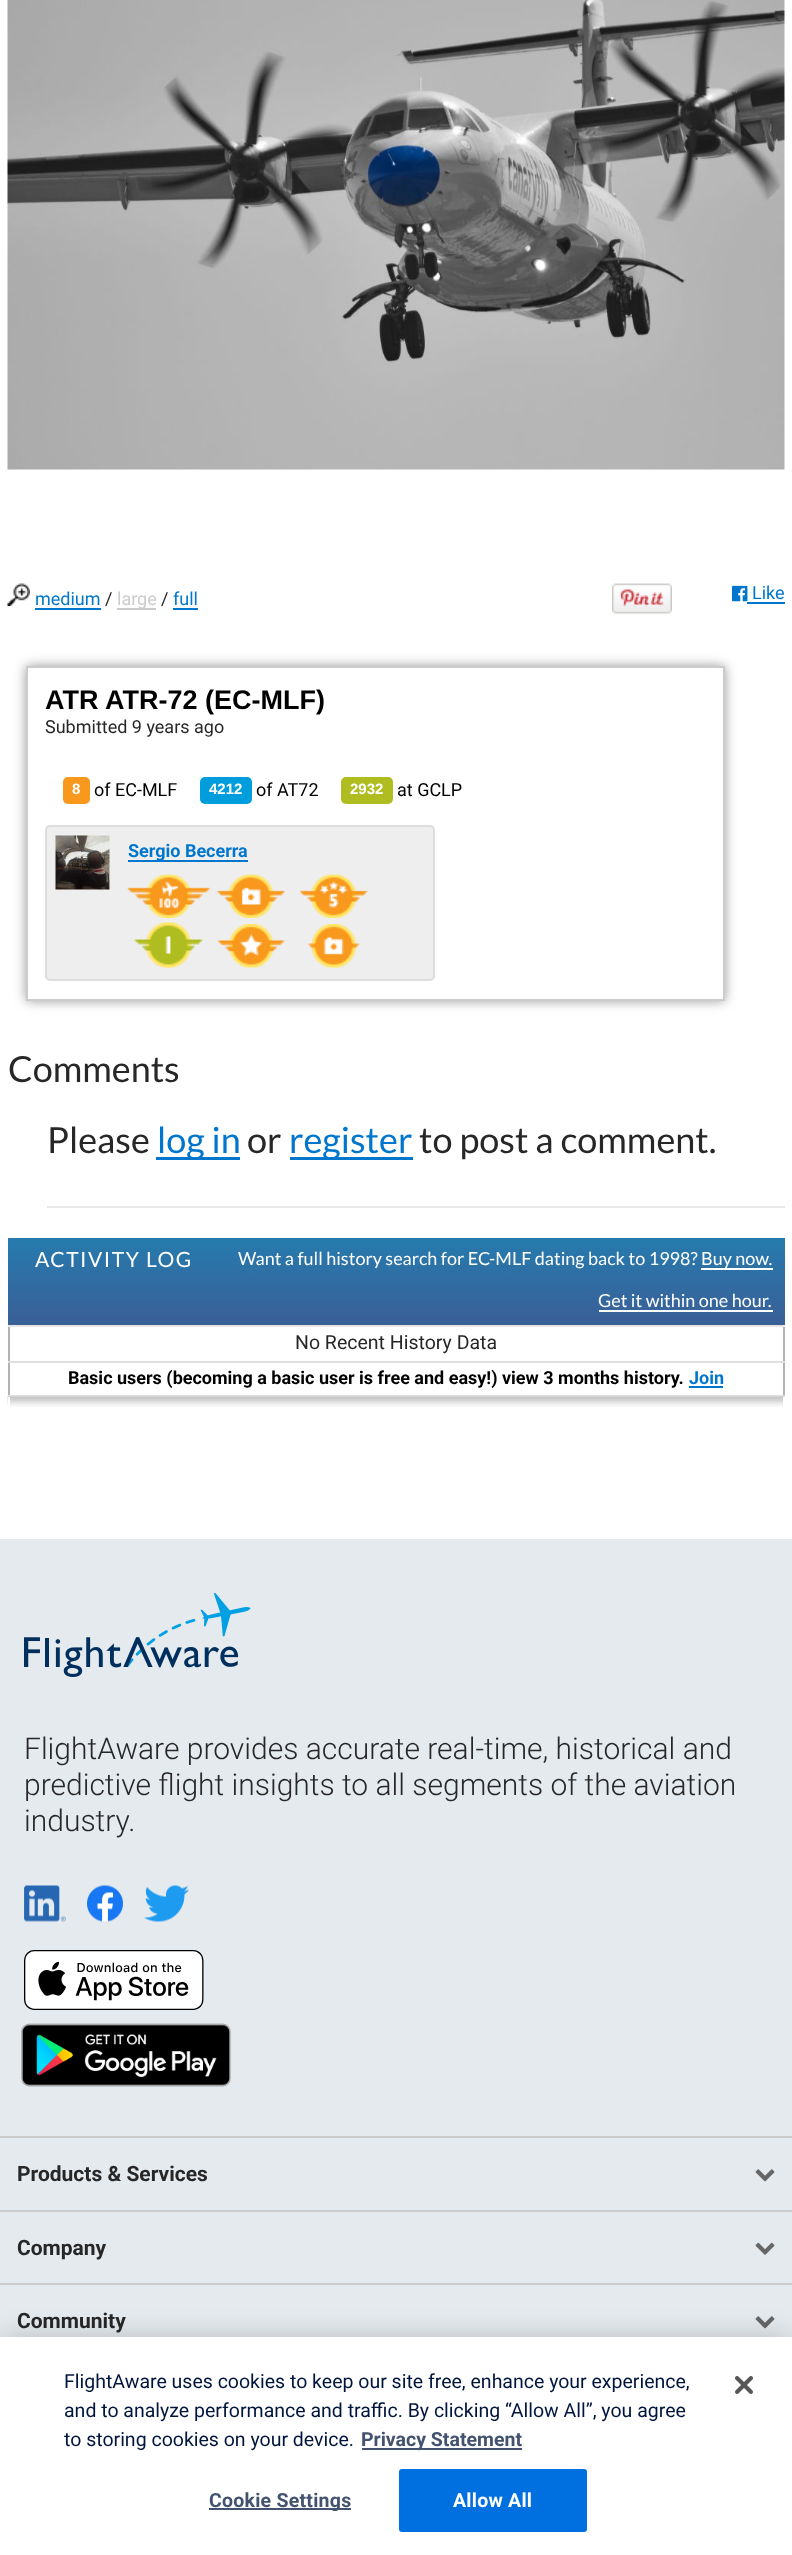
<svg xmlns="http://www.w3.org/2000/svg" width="792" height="2555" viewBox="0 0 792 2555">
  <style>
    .t1 { font: 18px Roboto; fill: #07c; }
    .t2 { font: 18px Roboto; fill: #272727; }
    .t3 { font: 18px Roboto; fill: #ccc; }
    .t4 { font: bold 27px Liberation Sans; fill: #000; }
    .t5 { font: bold 15px Liberation Sans; fill: #fff; }
    .t6 { font: 18px Roboto; fill: #000; }
    .t7 { font: bold 18px Roboto; fill: #07c; }
    .t8 { font: 36px Lato; fill: #272727; }
    .t9 { font: 36px Lato; fill: #07c; }
    .t10 { font: 21px Lato; letter-spacing: 1.5px; fill: #fff; }
    .t11 { font: 18px Lato; fill: #fff; }
    .t12 { font: 19.5px Roboto; fill: #272727; }
    .t13 { font: bold 18px Roboto; fill: #000; }
    .t14 { font: 300 30px Roboto; fill: #272727; }
    .t15 { font: bold 21px Roboto; fill: #272727; }
    .t16 { font: 19.5px Roboto; fill: #00153d; }
    .t17 { font: bold 19.5px Roboto; fill: #42526f; }
    .t18 { font: bold 19.5px Roboto; letter-spacing: 0.25px; fill: #42526f; }
    .t19 { font: bold 19.5px Roboto; letter-spacing: 0.25px; fill: #fff; }
  </style>
  <defs>
    <clipPath id="clip1"><path d="M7 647H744V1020H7ZM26 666H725V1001H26Z" clip-rule="evenodd"/></clipPath>
    <linearGradient id="g1" gradientUnits="userSpaceOnUse" x1="7.5" y1="1238" x2="7.5" y2="1325"><stop offset="0" stop-color="#267bae"/><stop offset="1" stop-color="#3a5f97"/></linearGradient>
  </defs>
  <rect width="100%" height="100%" fill="#fff"/>
  <image x="7" y="0" width="778" height="470" href="images/1.png"/>
  <image x="7" y="583" width="23" height="23" href="images/2.png"/>
  <text x="35" y="605" class="t1">medium</text>
  <rect x="35" y="608" width="66" height="2" fill="#07c"/>
  <text x="105" y="605" class="t2">/</text>
  <rect x="117" y="608" width="39" height="2" fill="#ccc"/>
  <text x="117" y="605" class="t3">large</text>
  <text x="161" y="605" class="t2">/</text>
  <text x="173" y="605" class="t1">full</text>
  <rect x="173" y="608" width="25" height="2" fill="#07c"/>
  <image x="612" y="583" width="60" height="31" href="images/3.png"/>
  <image x="732" y="585" width="16" height="17" href="images/4.png"/>
  <text x="752" y="599" class="t1">Like</text>
  <rect x="747" y="602" width="38" height="2" fill="#07c"/>
  <g clip-path="url(#clip1)">
    <rect x="26" y="666" width="699" height="335" fill="#999" filter="blur(6px)"/>
  </g>
  <rect x="27" y="667" width="697" height="333" fill="none" stroke="#ccc" stroke-width="2"/>
  <text x="45" y="709" class="t4">ATR ATR-72 (EC-MLF)</text>
  <text x="45" y="733" class="t2">Submitted 9 years ago</text>
  <rect x="63" y="777" width="27" height="27" rx="5" fill="#f8981d"/>
  <text x="72" y="794" class="t5">8</text>
  <text x="94" y="796" class="t6">of EC-MLF</text>
  <rect x="200" y="777" width="52" height="27" rx="5" fill="#009ddc"/>
  <text x="209" y="794" class="t5">4212</text>
  <text x="256" y="796" class="t6">of AT72</text>
  <rect x="341" y="777" width="52" height="27" rx="5" fill="#afbd21"/>
  <text x="350" y="794" class="t5">2932</text>
  <text x="397" y="796" class="t6">at GCLP</text>
  <rect x="46" y="826" width="388" height="154" rx="4" fill="#eee" stroke="#ddd" stroke-width="2"/>
  <image x="55" y="835" width="55" height="55" href="images/5.png"/>
  <rect x="128" y="860" width="120" height="2" fill="#07c"/>
  <text x="128" y="857" class="t7">Sergio Becerra</text>
  <image x="127" y="874" width="83" height="44" href="images/6.png"/>
  <image x="216" y="874" width="70" height="44" href="images/7.png"/>
  <image x="299" y="874" width="69" height="44" href="images/8.png"/>
  <image x="133" y="922" width="70" height="46" href="images/9.png"/>
  <image x="217" y="924" width="69" height="44" href="images/10.png"/>
  <image x="307" y="924" width="54" height="44" href="images/11.png"/>
  <text x="8" y="1082" class="t8">Comments</text>
  <rect x="47" y="1206" width="738" height="2" fill="#e8e8e8"/>
  <text x="47" y="1153" class="t8">Please</text>
  <rect x="156" y="1157" width="84" height="3" fill="#07c"/>
  <text x="157" y="1153" class="t9">log in</text>
  <text x="247" y="1153" class="t8">or</text>
  <rect x="290" y="1157" width="123" height="3" fill="#07c"/>
  <text x="289" y="1153" class="t9">register</text>
  <text x="419" y="1153" class="t8">to post a comment.</text>
  <rect x="8" y="1238" width="777" height="87" fill="url(#g1)"/>
  <text x="35" y="1267" class="t10">ACTIVITY LOG</text>
  <text x="238" y="1265" class="t11">Want a full history search for EC-MLF dating back to 1998?</text>
  <rect x="701" y="1268" width="72" height="2" fill="#fff"/>
  <text x="701" y="1265" class="t11">Buy now.</text>
  <text x="598" y="1307" class="t11">Get it within one hour.</text>
  <rect x="599" y="1310" width="174" height="2" fill="#fff"/>
  <rect x="783" y="1325" width="2" height="72" fill="#b2b2b2"/>
  <rect x="8" y="1325" width="2" height="72" fill="#b2b2b2"/>
  <rect x="8" y="1325" width="777" height="2" fill="#e5e5e4"/>
  <rect x="8" y="1361" width="777" height="2" fill="#dfdfdf"/>
  <text x="295" y="1349" class="t12">No Recent History Data</text>
  <rect x="8" y="1395" width="777" height="2" fill="#dfdfdf"/>
  <text x="68" y="1384" class="t13">Basic users (becoming a basic user is free and easy!) view 3 months history.</text>
  <text x="689" y="1384" class="t7">Join</text>
  <rect x="689" y="1386" width="34" height="2" fill="#07c"/>
  <image x="7" y="1396" width="778" height="11" href="images/12.png"/>
  <rect x="783" y="1397" width="2" height="10" fill="#fff"/>
  <rect x="8" y="1397" width="2" height="10" fill="#fff"/>
  <rect x="0" y="1539" width="792" height="798" fill="#e5eaef"/>
  <image x="24" y="1593" width="227" height="84" href="images/13.png"/>
  <text x="24" y="1759" class="t14">FlightAware provides accurate real-time, historical and</text>
  <text x="24" y="1795" class="t14">predictive flight insights to all segments of the aviation</text>
  <text x="24" y="1831" class="t14">industry.</text>
  <image x="24" y="1885" width="42" height="37" href="images/14.png"/>
  <image x="87" y="1885" width="36" height="37" href="images/15.png"/>
  <image x="144" y="1885" width="45" height="37" href="images/16.png"/>
  <image x="24" y="1950" width="180" height="60" href="images/17.png"/>
  <image x="21" y="2023" width="210" height="64" href="images/18.png"/>
  <rect x="0" y="2136" width="792" height="2" fill="#ccc"/>
  <rect x="0" y="2210" width="792" height="2" fill="#ccc"/>
  <text x="17" y="2181" class="t15">Products &amp; Services</text>
  <image x="755" y="2169" width="20" height="13" href="images/19.png"/>
  <rect x="0" y="2283" width="792" height="2" fill="#ccc"/>
  <text x="17" y="2255" class="t15">Company</text>
  <image x="755" y="2242" width="20" height="13" href="images/20.png"/>
  <text x="17" y="2328" class="t15">Community</text>
  <image x="755" y="2316" width="20" height="13" href="images/19.png"/>
  <rect x="0" y="2337" width="792" height="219" fill="#00000033" filter="blur(13.5px)"/>
  <rect x="0" y="2337" width="792" height="218" fill="#fff"/>
  <text x="64" y="2388" class="t16">FlightAware uses cookies to keep our site free, enhance your experience,</text>
  <text x="64" y="2417" class="t16">and to analyze performance and traffic. By clicking “Allow All”, you agree</text>
  <text x="64" y="2446" class="t16">to storing cookies on your device.</text>
  <rect x="362" y="2448" width="160" height="2" fill="#42526f"/>
  <text x="361" y="2446" class="t17">Privacy Statement</text>
  <rect x="209" y="2508" width="142" height="2" fill="#42526f"/>
  <text x="209" y="2507" class="t18">Cookie Settings</text>
  <rect x="400" y="2470" width="186" height="61" rx="2" fill="#0070e0" stroke="#0070e0" stroke-width="2"/>
  <text x="453" y="2507" class="t19">Allow All</text>
  <image x="735" y="2376" width="18" height="18" href="images/21.png"/>
</svg>
